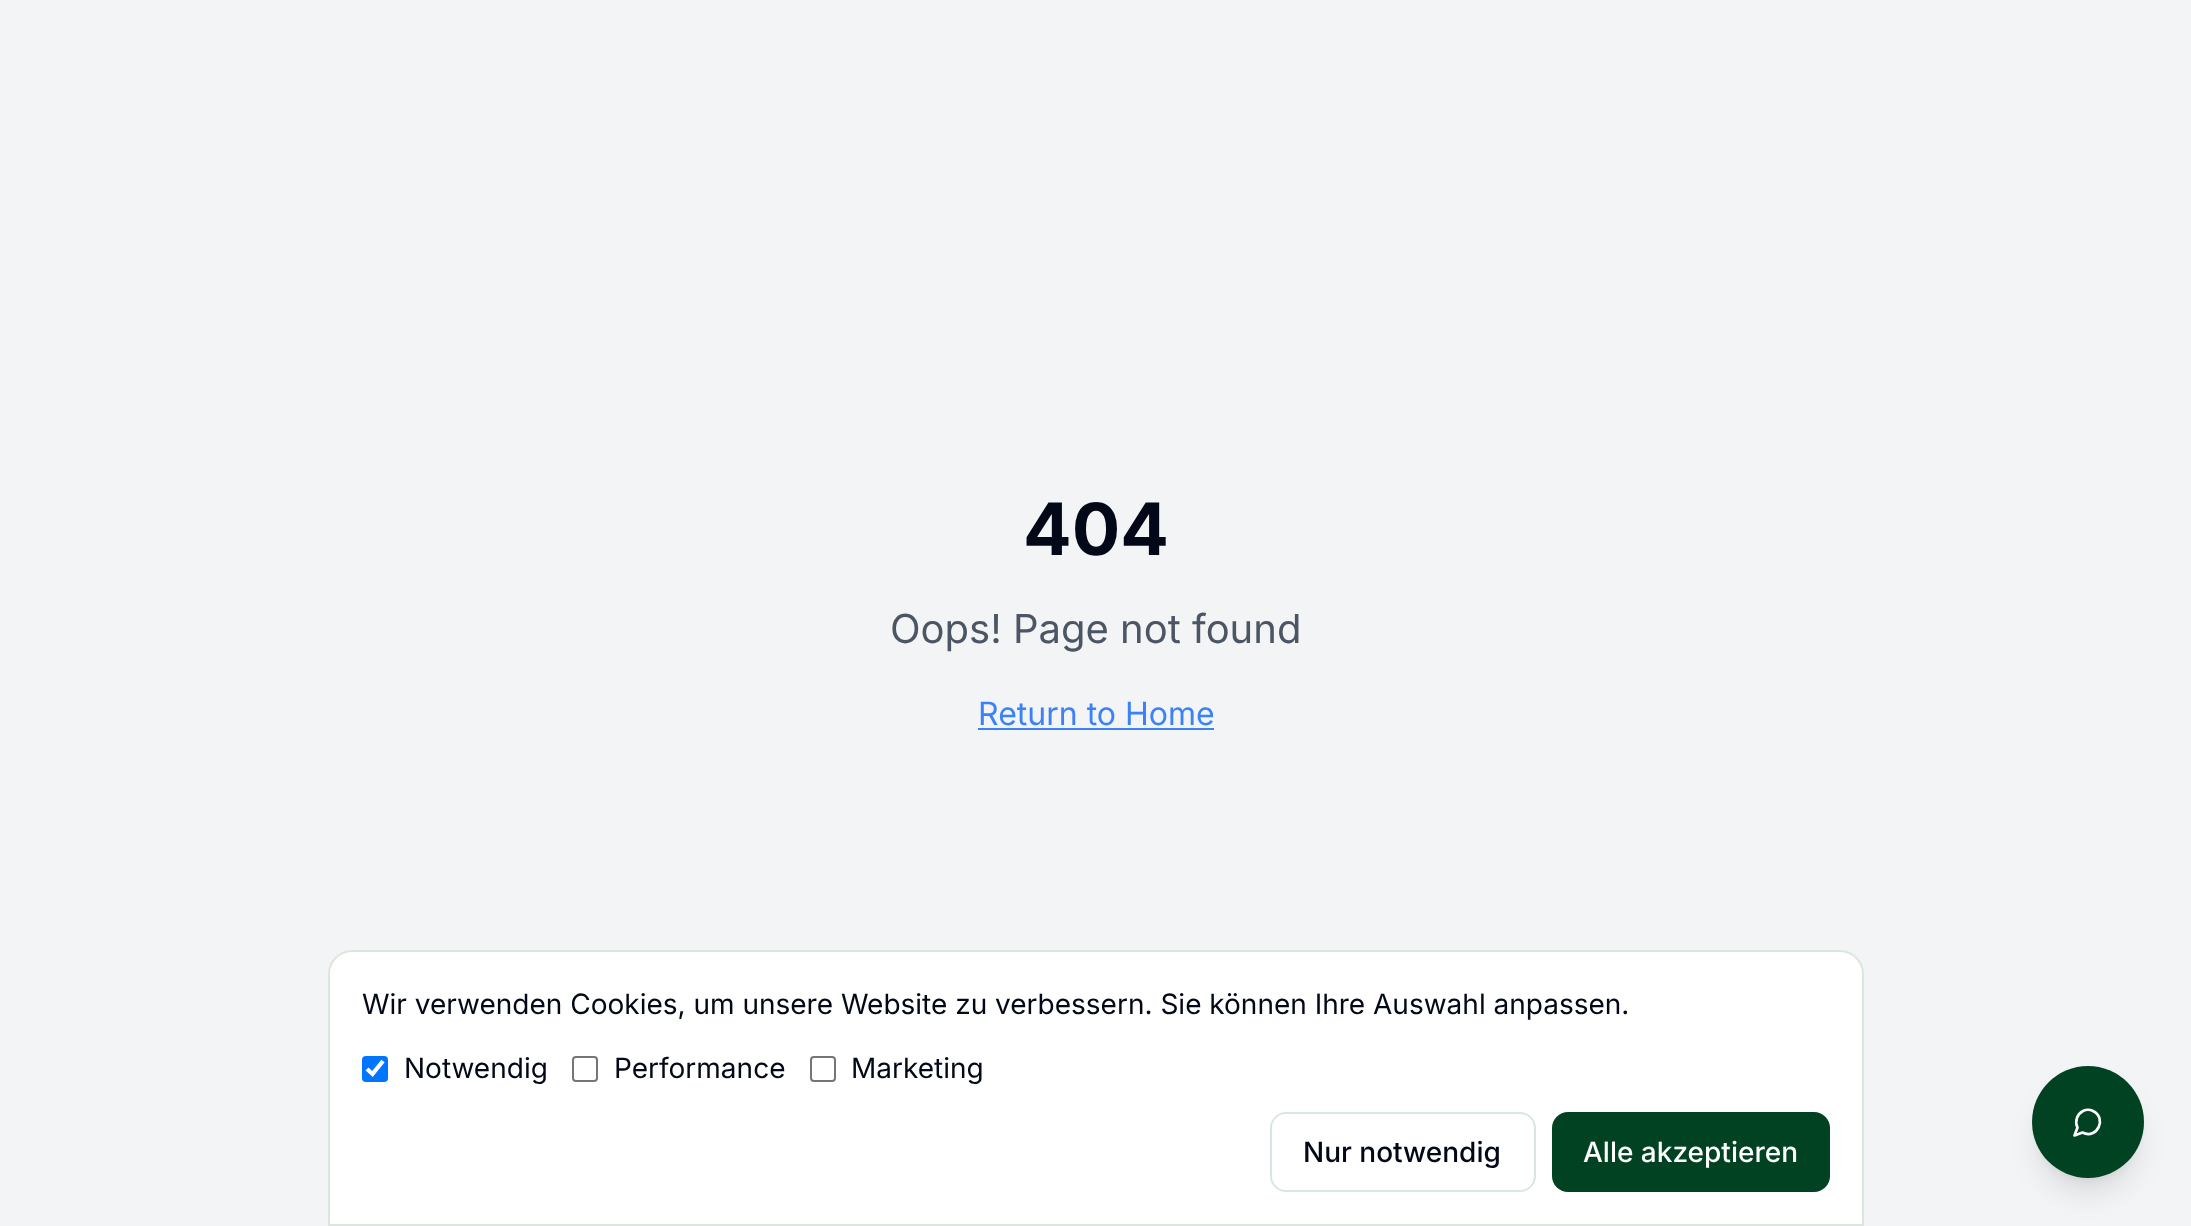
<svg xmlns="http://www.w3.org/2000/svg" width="2191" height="1226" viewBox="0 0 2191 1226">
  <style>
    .t1 { font: bold 72px Inter; fill: #020817; }
    .t2 { font: 40px Inter; fill: #4b5563; }
    .t3 { font: 32px Inter; fill: #3b82f6; }
    .t4 { font: 28px Inter; fill: #020817; }
    .t5 { font: 500 28px Inter; fill: #020817; }
    .t6 { font: 500 28px Inter; fill: #fff; }
  </style>
  <rect width="100%" height="100%" fill="#f3f4f6"/>
  <text x="1023" y="555" class="t1">404</text>
  <text x="890" y="643" class="t2">Oops! Page not found</text>
  <text x="978" y="725" class="t3">Return to Home</text>
  <rect x="978" y="728" width="236" height="2" fill="#3b82f6"/>
  <path d="M352 951H1840C1852.5 951 1863 961.5 1863 974V1225H329V974C329 961.5 339.5 951 352 951Z" fill="#fff" stroke="#dae7e0" stroke-width="2"/>
  <text x="362" y="1014" class="t4">Wir verwenden Cookies, um unsere Website zu verbessern. Sie können Ihre Auswahl anpassen.</text>
  <rect x="362" y="1056" width="26" height="26" rx="4" fill="#0075ff"/>
  <path d="M367 1069L372.5 1074L383 1061" fill="none" stroke="#fff" stroke-width="4.2"/>
  <text x="404" y="1078" class="t4">Notwendig</text>
  <rect x="573" y="1057" width="24" height="24" rx="3" fill="none" stroke="#767676" stroke-width="2"/>
  <text x="614" y="1078" class="t4">Performance</text>
  <rect x="811" y="1057" width="24" height="24" rx="3" fill="none" stroke="#767676" stroke-width="2"/>
  <text x="851" y="1078" class="t4">Marketing</text>
  <rect x="1271" y="1113" width="264" height="78" rx="15" fill="none" stroke="#dae7e0" stroke-width="2"/>
  <text x="1303" y="1162" class="t5">Nur notwendig</text>
  <rect x="1552" y="1112" width="278" height="80" rx="16" fill="#004221"/>
  <text x="1583" y="1162" class="t6">Alle akzeptieren</text>
  <rect x="2040" y="1082" width="96" height="96" rx="48" fill="#0000001a" filter="blur(6px)"/>
  <rect x="2038" y="1092" width="100" height="100" rx="50" fill="#0000001a" filter="blur(15px)"/>
  <circle cx="2088" cy="1122" r="56" fill="#004221"/>
  <path d="M2082.5 1132.5C2097 1140 2107.5 1118 2093 1111C2090 1109.5 2086 1109.5 2083 1111C2077 1114 2074.5 1121.5 2077.5 1127.5L2074.5 1135.5Z" fill="none" stroke="#fff" stroke-width="2.7" stroke-linecap="round" stroke-linejoin="round"/>
</svg>
